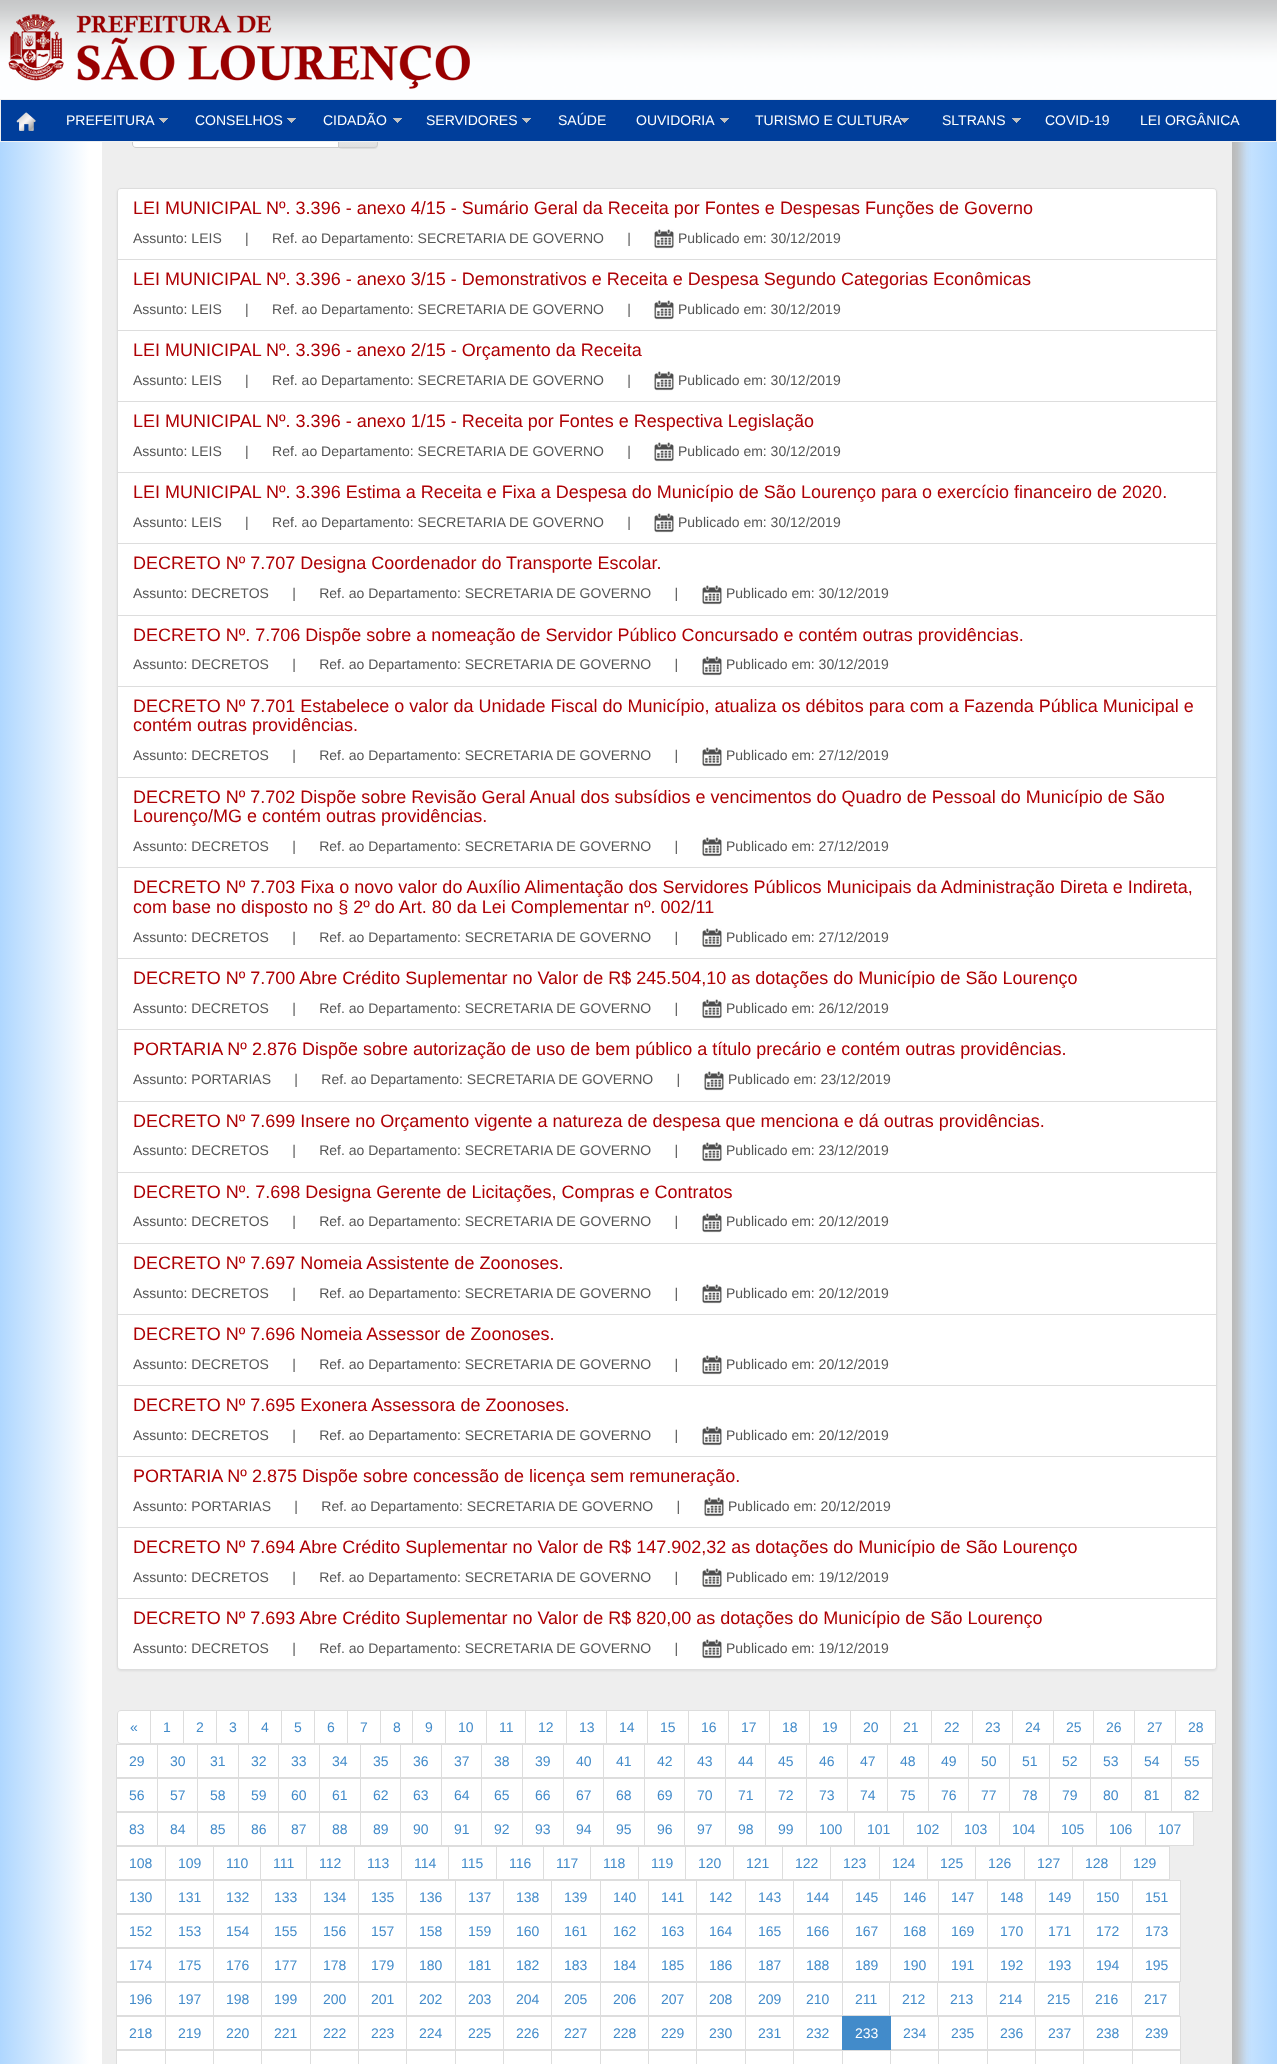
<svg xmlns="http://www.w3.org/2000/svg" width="1277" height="2064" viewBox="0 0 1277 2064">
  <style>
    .t1 { font: 14px Liberation Sans; fill: #fff; }
    .t2 { font: 18px Liberation Sans; fill: #ae0004; }
    .t3 { font: 14px Liberation Sans; fill: #555; }
    .t4 { font: 14px Liberation Sans; fill: #428bca; }
  </style>
  <defs>
    <linearGradient id="g1" gradientUnits="userSpaceOnUse" x1="0" y1="1253" x2="1277" y2="1253"><stop offset="0" stop-color="#afd7ff"/><stop offset="0.07" stop-color="#fff"/><stop offset="0.92" stop-color="#fff"/><stop offset="1" stop-color="#afd7ff"/></linearGradient>
    <clipPath id="clip1"><path d="M338 114H374C376 114 378 116 378 118V144C378 146 376 148 374 148H338Z"/></clipPath>
    <linearGradient id="g2" gradientUnits="userSpaceOnUse" x1="358" y1="115" x2="358" y2="147"><stop offset="0" stop-color="#fff"/><stop offset="1" stop-color="#e0e0e0"/></linearGradient>
  </defs>
  <rect width="100%" height="100%" fill="#fff"/>
  <rect x="0" y="142" width="1277" height="1922" fill="url(#g1)"/>
  <rect x="112" y="13" width="1130" height="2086" rx="20" fill="#bababa" filter="blur(5px)"/>
  <image x="0" y="0" width="1277" height="99" href="images/1.png"/>
  <image x="8" y="14" width="462" height="75" href="images/2.png"/>
  <rect x="102" y="142" width="1130" height="1922" fill="#eee"/>
  <rect x="338" y="115" width="40" height="34" rx="4" fill="#00000012" filter="blur(0.5px)"/>
  <g clip-path="url(#clip1)">
    <rect x="339" y="142" width="39" height="5" fill="url(#g2)"/>
  </g>
  <path d="M338.5 114.5H374C376 114.5 377.5 116 377.5 118V144C377.5 146 376 147.5 374 147.5H338.5Z" fill="none" stroke="#ccc"/>
  <path d="M136 114.5H338.5V147.5H136C134 147.5 132.5 146 132.5 144V118C132.5 116 134 114.5 136 114.5Z" fill="#fff" stroke="#ccc"/>
  <rect x="0.5" y="99.5" width="1276" height="42" fill="#003e9b" stroke="#f0f0f0"/>
  <image x="16" y="112" width="20" height="19" href="images/3.png"/>
  <image x="159" y="118" width="9" height="5" href="images/4.png"/>
  <text x="66" y="125" class="t1">PREFEITURA</text>
  <image x="287" y="118" width="9" height="5" href="images/4.png"/>
  <text x="195" y="125" class="t1">CONSELHOS</text>
  <image x="393" y="118" width="9" height="5" href="images/4.png"/>
  <text x="323" y="125" class="t1">CIDADÃO</text>
  <image x="522" y="118" width="9" height="5" href="images/4.png"/>
  <text x="426" y="125" class="t1">SERVIDORES</text>
  <text x="558" y="125" class="t1">SAÚDE</text>
  <image x="720" y="118" width="9" height="5" href="images/4.png"/>
  <text x="636" y="125" class="t1">OUVIDORIA</text>
  <image x="900" y="118" width="9" height="5" href="images/4.png"/>
  <text x="755" y="125" class="t1">TURISMO E CULTURA</text>
  <image x="1012" y="118" width="9" height="5" href="images/4.png"/>
  <text x="942" y="125" class="t1">SLTRANS</text>
  <text x="1045" y="125" class="t1">COVID-19</text>
  <text x="1140" y="125" class="t1">LEI ORGÂNICA</text>
  <rect x="117" y="189" width="1100" height="1482" rx="4" fill="#00000012" filter="blur(1px)"/>
  <path d="M121 188.5H1213C1215 188.5 1216.5 190 1216.5 192V259.5H117.5V192C117.5 190 119 188.5 121 188.5Z" fill="#fff" stroke="#ddd"/>
  <text x="133" y="214" class="t2">LEI MUNICIPAL Nº. 3.396 - anexo 4/15 - Sumário Geral da Receita por Fontes e Despesas Funções de Governo</text>
  <text x="133" y="243" class="t3" xml:space="preserve">Assunto: LEIS      |      Ref. ao Departamento: SECRETARIA DE GOVERNO      |</text>
  <image x="654" y="229" width="20" height="20" href="images/5.png"/>
  <text x="678" y="243" class="t3">Publicado em: 30/12/2019</text>
  <rect x="117.5" y="259.5" width="1099" height="71" fill="#fff" stroke="#ddd"/>
  <text x="133" y="285" class="t2">LEI MUNICIPAL Nº. 3.396 - anexo 3/15 - Demonstrativos e Receita e Despesa Segundo Categorias Econômicas</text>
  <text x="133" y="314" class="t3" xml:space="preserve">Assunto: LEIS      |      Ref. ao Departamento: SECRETARIA DE GOVERNO      |</text>
  <image x="654" y="300" width="20" height="20" href="images/5.png"/>
  <text x="678" y="314" class="t3">Publicado em: 30/12/2019</text>
  <rect x="117.5" y="330.5" width="1099" height="71" fill="#fff" stroke="#ddd"/>
  <text x="133" y="356" class="t2">LEI MUNICIPAL Nº. 3.396 - anexo 2/15 - Orçamento da Receita</text>
  <text x="133" y="385" class="t3" xml:space="preserve">Assunto: LEIS      |      Ref. ao Departamento: SECRETARIA DE GOVERNO      |</text>
  <image x="654" y="371" width="20" height="20" href="images/5.png"/>
  <text x="678" y="385" class="t3">Publicado em: 30/12/2019</text>
  <rect x="117.5" y="401.5" width="1099" height="71" fill="#fff" stroke="#ddd"/>
  <text x="133" y="427" class="t2">LEI MUNICIPAL Nº. 3.396 - anexo 1/15 - Receita por Fontes e Respectiva Legislação</text>
  <text x="133" y="456" class="t3" xml:space="preserve">Assunto: LEIS      |      Ref. ao Departamento: SECRETARIA DE GOVERNO      |</text>
  <image x="654" y="442" width="20" height="20" href="images/5.png"/>
  <text x="678" y="456" class="t3">Publicado em: 30/12/2019</text>
  <rect x="117.5" y="472.5" width="1099" height="71" fill="#fff" stroke="#ddd"/>
  <text x="133" y="498" class="t2">LEI MUNICIPAL Nº. 3.396 Estima a Receita e Fixa a Despesa do Município de São Lourenço para o exercício financeiro de 2020.</text>
  <text x="133" y="527" class="t3" xml:space="preserve">Assunto: LEIS      |      Ref. ao Departamento: SECRETARIA DE GOVERNO      |</text>
  <image x="654" y="513" width="20" height="20" href="images/5.png"/>
  <text x="678" y="527" class="t3">Publicado em: 30/12/2019</text>
  <rect x="117.5" y="543.5" width="1099" height="72" fill="#fff" stroke="#ddd"/>
  <text x="133" y="569" class="t2">DECRETO Nº 7.707 Designa Coordenador do Transporte Escolar.</text>
  <text x="133" y="598" class="t3" xml:space="preserve">Assunto: DECRETOS      |      Ref. ao Departamento: SECRETARIA DE GOVERNO      |</text>
  <image x="702" y="585" width="20" height="20" href="images/5.png"/>
  <text x="726" y="598" class="t3">Publicado em: 30/12/2019</text>
  <rect x="117.5" y="615.5" width="1099" height="71" fill="#fff" stroke="#ddd"/>
  <text x="133" y="641" class="t2">DECRETO Nº. 7.706 Dispõe sobre a nomeação de Servidor Público Concursado e contém outras providências.</text>
  <text x="133" y="669" class="t3" xml:space="preserve">Assunto: DECRETOS      |      Ref. ao Departamento: SECRETARIA DE GOVERNO      |</text>
  <image x="702" y="656" width="20" height="20" href="images/5.png"/>
  <text x="726" y="669" class="t3">Publicado em: 30/12/2019</text>
  <rect x="117.5" y="686.5" width="1099" height="91" fill="#fff" stroke="#ddd"/>
  <text x="133" y="712" class="t2">DECRETO Nº 7.701 Estabelece o valor da Unidade Fiscal do Município, atualiza os débitos para com a Fazenda Pública Municipal e</text>
  <text x="133" y="731" class="t2">contém outras providências.</text>
  <text x="133" y="760" class="t3" xml:space="preserve">Assunto: DECRETOS      |      Ref. ao Departamento: SECRETARIA DE GOVERNO      |</text>
  <image x="702" y="747" width="20" height="20" href="images/5.png"/>
  <text x="726" y="760" class="t3">Publicado em: 27/12/2019</text>
  <rect x="117.5" y="777.5" width="1099" height="90" fill="#fff" stroke="#ddd"/>
  <text x="133" y="803" class="t2">DECRETO Nº 7.702 Dispõe sobre Revisão Geral Anual dos subsídios e vencimentos do Quadro de Pessoal do Município de São</text>
  <text x="133" y="822" class="t2">Lourenço/MG e contém outras providências.</text>
  <text x="133" y="851" class="t3" xml:space="preserve">Assunto: DECRETOS      |      Ref. ao Departamento: SECRETARIA DE GOVERNO      |</text>
  <image x="702" y="837" width="20" height="20" href="images/5.png"/>
  <text x="726" y="851" class="t3">Publicado em: 27/12/2019</text>
  <rect x="117.5" y="867.5" width="1099" height="91" fill="#fff" stroke="#ddd"/>
  <text x="133" y="893" class="t2">DECRETO Nº 7.703 Fixa o novo valor do Auxílio Alimentação dos Servidores Públicos Municipais da Administração Direta e Indireta,</text>
  <text x="133" y="913" class="t2">com base no disposto no § 2º do Art. 80 da Lei Complementar nº. 002/11</text>
  <text x="133" y="942" class="t3" xml:space="preserve">Assunto: DECRETOS      |      Ref. ao Departamento: SECRETARIA DE GOVERNO      |</text>
  <image x="702" y="928" width="20" height="20" href="images/5.png"/>
  <text x="726" y="942" class="t3">Publicado em: 27/12/2019</text>
  <rect x="117.5" y="958.5" width="1099" height="71" fill="#fff" stroke="#ddd"/>
  <text x="133" y="984" class="t2">DECRETO Nº 7.700 Abre Crédito Suplementar no Valor de R$ 245.504,10 as dotações do Município de São Lourenço</text>
  <text x="133" y="1013" class="t3" xml:space="preserve">Assunto: DECRETOS      |      Ref. ao Departamento: SECRETARIA DE GOVERNO      |</text>
  <image x="702" y="999" width="20" height="20" href="images/5.png"/>
  <text x="726" y="1013" class="t3">Publicado em: 26/12/2019</text>
  <rect x="117.5" y="1029.5" width="1099" height="72" fill="#fff" stroke="#ddd"/>
  <text x="133" y="1055" class="t2">PORTARIA Nº 2.876 Dispõe sobre autorização de uso de bem público a título precário e contém outras providências.</text>
  <text x="133" y="1084" class="t3" xml:space="preserve">Assunto: PORTARIAS      |      Ref. ao Departamento: SECRETARIA DE GOVERNO      |</text>
  <image x="704" y="1071" width="20" height="20" href="images/5.png"/>
  <text x="728" y="1084" class="t3">Publicado em: 23/12/2019</text>
  <rect x="117.5" y="1101.5" width="1099" height="71" fill="#fff" stroke="#ddd"/>
  <text x="133" y="1127" class="t2">DECRETO Nº 7.699 Insere no Orçamento vigente a natureza de despesa que menciona e dá outras providências.</text>
  <text x="133" y="1155" class="t3" xml:space="preserve">Assunto: DECRETOS      |      Ref. ao Departamento: SECRETARIA DE GOVERNO      |</text>
  <image x="702" y="1142" width="20" height="20" href="images/5.png"/>
  <text x="726" y="1155" class="t3">Publicado em: 23/12/2019</text>
  <rect x="117.5" y="1172.5" width="1099" height="71" fill="#fff" stroke="#ddd"/>
  <text x="133" y="1198" class="t2">DECRETO Nº. 7.698 Designa Gerente de Licitações, Compras e Contratos</text>
  <text x="133" y="1226" class="t3" xml:space="preserve">Assunto: DECRETOS      |      Ref. ao Departamento: SECRETARIA DE GOVERNO      |</text>
  <image x="702" y="1213" width="20" height="20" href="images/5.png"/>
  <text x="726" y="1226" class="t3">Publicado em: 20/12/2019</text>
  <rect x="117.5" y="1243.5" width="1099" height="71" fill="#fff" stroke="#ddd"/>
  <text x="133" y="1269" class="t2">DECRETO Nº 7.697 Nomeia Assistente de Zoonoses.</text>
  <text x="133" y="1298" class="t3" xml:space="preserve">Assunto: DECRETOS      |      Ref. ao Departamento: SECRETARIA DE GOVERNO      |</text>
  <image x="702" y="1284" width="20" height="20" href="images/5.png"/>
  <text x="726" y="1298" class="t3">Publicado em: 20/12/2019</text>
  <rect x="117.5" y="1314.5" width="1099" height="71" fill="#fff" stroke="#ddd"/>
  <text x="133" y="1340" class="t2">DECRETO Nº 7.696 Nomeia Assessor de Zoonoses.</text>
  <text x="133" y="1369" class="t3" xml:space="preserve">Assunto: DECRETOS      |      Ref. ao Departamento: SECRETARIA DE GOVERNO      |</text>
  <image x="702" y="1355" width="20" height="20" href="images/5.png"/>
  <text x="726" y="1369" class="t3">Publicado em: 20/12/2019</text>
  <rect x="117.5" y="1385.5" width="1099" height="71" fill="#fff" stroke="#ddd"/>
  <text x="133" y="1411" class="t2">DECRETO Nº 7.695 Exonera Assessora de Zoonoses.</text>
  <text x="133" y="1440" class="t3" xml:space="preserve">Assunto: DECRETOS      |      Ref. ao Departamento: SECRETARIA DE GOVERNO      |</text>
  <image x="702" y="1426" width="20" height="20" href="images/5.png"/>
  <text x="726" y="1440" class="t3">Publicado em: 20/12/2019</text>
  <rect x="117.5" y="1456.5" width="1099" height="71" fill="#fff" stroke="#ddd"/>
  <text x="133" y="1482" class="t2">PORTARIA Nº 2.875 Dispõe sobre concessão de licença sem remuneração.</text>
  <text x="133" y="1511" class="t3" xml:space="preserve">Assunto: PORTARIAS      |      Ref. ao Departamento: SECRETARIA DE GOVERNO      |</text>
  <image x="704" y="1497" width="20" height="20" href="images/5.png"/>
  <text x="728" y="1511" class="t3">Publicado em: 20/12/2019</text>
  <rect x="117.5" y="1527.5" width="1099" height="71" fill="#fff" stroke="#ddd"/>
  <text x="133" y="1553" class="t2">DECRETO Nº 7.694 Abre Crédito Suplementar no Valor de R$ 147.902,32 as dotações do Município de São Lourenço</text>
  <text x="133" y="1582" class="t3" xml:space="preserve">Assunto: DECRETOS      |      Ref. ao Departamento: SECRETARIA DE GOVERNO      |</text>
  <image x="702" y="1568" width="20" height="20" href="images/5.png"/>
  <text x="726" y="1582" class="t3">Publicado em: 19/12/2019</text>
  <path d="M117.5 1598.5H1216.5V1666C1216.5 1668 1215 1669.5 1213 1669.5H121C119 1669.5 117.5 1668 117.5 1666Z" fill="#fff" stroke="#ddd"/>
  <text x="133" y="1624" class="t2">DECRETO Nº 7.693 Abre Crédito Suplementar no Valor de R$ 820,00 as dotações do Município de São Lourenço</text>
  <text x="133" y="1653" class="t3" xml:space="preserve">Assunto: DECRETOS      |      Ref. ao Departamento: SECRETARIA DE GOVERNO      |</text>
  <image x="702" y="1639" width="20" height="20" href="images/5.png"/>
  <text x="726" y="1653" class="t3">Publicado em: 19/12/2019</text>
  <path d="M121 1710.5H150.5V1743.5H121C119 1743.5 117.5 1742 117.5 1740V1714C117.5 1712 119 1710.5 121 1710.5Z" fill="#fff" stroke="#ddd"/>
  <text x="130" y="1732" class="t4">«</text>
  <rect x="150.5" y="1710.5" width="33" height="33" fill="#fff" stroke="#ddd"/>
  <text x="163" y="1732" class="t4">1</text>
  <rect x="183.5" y="1710.5" width="33" height="33" fill="#fff" stroke="#ddd"/>
  <text x="196" y="1732" class="t4">2</text>
  <rect x="216.5" y="1710.5" width="32" height="33" fill="#fff" stroke="#ddd"/>
  <text x="229" y="1732" class="t4">3</text>
  <rect x="248.5" y="1710.5" width="33" height="33" fill="#fff" stroke="#ddd"/>
  <text x="261" y="1732" class="t4">4</text>
  <rect x="281.5" y="1710.5" width="33" height="33" fill="#fff" stroke="#ddd"/>
  <text x="294" y="1732" class="t4">5</text>
  <rect x="314.5" y="1710.5" width="33" height="33" fill="#fff" stroke="#ddd"/>
  <text x="327" y="1732" class="t4">6</text>
  <rect x="347.5" y="1710.5" width="33" height="33" fill="#fff" stroke="#ddd"/>
  <text x="360" y="1732" class="t4">7</text>
  <rect x="380.5" y="1710.5" width="32" height="33" fill="#fff" stroke="#ddd"/>
  <text x="393" y="1732" class="t4">8</text>
  <rect x="412.5" y="1710.5" width="33" height="33" fill="#fff" stroke="#ddd"/>
  <text x="425" y="1732" class="t4">9</text>
  <rect x="445.5" y="1710.5" width="41" height="33" fill="#fff" stroke="#ddd"/>
  <text x="458" y="1732" class="t4">10</text>
  <rect x="486.5" y="1710.5" width="39" height="33" fill="#fff" stroke="#ddd"/>
  <text x="499" y="1732" class="t4">11</text>
  <rect x="525.5" y="1710.5" width="41" height="33" fill="#fff" stroke="#ddd"/>
  <text x="538" y="1732" class="t4">12</text>
  <rect x="566.5" y="1710.5" width="40" height="33" fill="#fff" stroke="#ddd"/>
  <text x="579" y="1732" class="t4">13</text>
  <rect x="606.5" y="1710.5" width="41" height="33" fill="#fff" stroke="#ddd"/>
  <text x="619" y="1732" class="t4">14</text>
  <rect x="647.5" y="1710.5" width="41" height="33" fill="#fff" stroke="#ddd"/>
  <text x="660" y="1732" class="t4">15</text>
  <rect x="688.5" y="1710.5" width="40" height="33" fill="#fff" stroke="#ddd"/>
  <text x="701" y="1732" class="t4">16</text>
  <rect x="728.5" y="1710.5" width="41" height="33" fill="#fff" stroke="#ddd"/>
  <text x="741" y="1732" class="t4">17</text>
  <rect x="769.5" y="1710.5" width="40" height="33" fill="#fff" stroke="#ddd"/>
  <text x="782" y="1732" class="t4">18</text>
  <rect x="809.5" y="1710.5" width="41" height="33" fill="#fff" stroke="#ddd"/>
  <text x="822" y="1732" class="t4">19</text>
  <rect x="850.5" y="1710.5" width="40" height="33" fill="#fff" stroke="#ddd"/>
  <text x="863" y="1732" class="t4">20</text>
  <rect x="890.5" y="1710.5" width="41" height="33" fill="#fff" stroke="#ddd"/>
  <text x="903" y="1732" class="t4">21</text>
  <rect x="931.5" y="1710.5" width="41" height="33" fill="#fff" stroke="#ddd"/>
  <text x="944" y="1732" class="t4">22</text>
  <rect x="972.5" y="1710.5" width="40" height="33" fill="#fff" stroke="#ddd"/>
  <text x="985" y="1732" class="t4">23</text>
  <rect x="1012.5" y="1710.5" width="41" height="33" fill="#fff" stroke="#ddd"/>
  <text x="1025" y="1732" class="t4">24</text>
  <rect x="1053.5" y="1710.5" width="40" height="33" fill="#fff" stroke="#ddd"/>
  <text x="1066" y="1732" class="t4">25</text>
  <rect x="1093.5" y="1710.5" width="41" height="33" fill="#fff" stroke="#ddd"/>
  <text x="1106" y="1732" class="t4">26</text>
  <rect x="1134.5" y="1710.5" width="41" height="33" fill="#fff" stroke="#ddd"/>
  <text x="1147" y="1732" class="t4">27</text>
  <rect x="1175.5" y="1710.5" width="40" height="33" fill="#fff" stroke="#ddd"/>
  <text x="1188" y="1732" class="t4">28</text>
  <rect x="116.5" y="1744.5" width="41" height="33" fill="#fff" stroke="#ddd"/>
  <text x="129" y="1766" class="t4">29</text>
  <rect x="157.5" y="1744.5" width="40" height="33" fill="#fff" stroke="#ddd"/>
  <text x="170" y="1766" class="t4">30</text>
  <rect x="197.5" y="1744.5" width="41" height="33" fill="#fff" stroke="#ddd"/>
  <text x="210" y="1766" class="t4">31</text>
  <rect x="238.5" y="1744.5" width="40" height="33" fill="#fff" stroke="#ddd"/>
  <text x="251" y="1766" class="t4">32</text>
  <rect x="278.5" y="1744.5" width="41" height="33" fill="#fff" stroke="#ddd"/>
  <text x="291" y="1766" class="t4">33</text>
  <rect x="319.5" y="1744.5" width="41" height="33" fill="#fff" stroke="#ddd"/>
  <text x="332" y="1766" class="t4">34</text>
  <rect x="360.5" y="1744.5" width="40" height="33" fill="#fff" stroke="#ddd"/>
  <text x="373" y="1766" class="t4">35</text>
  <rect x="400.5" y="1744.5" width="41" height="33" fill="#fff" stroke="#ddd"/>
  <text x="413" y="1766" class="t4">36</text>
  <rect x="441.5" y="1744.5" width="40" height="33" fill="#fff" stroke="#ddd"/>
  <text x="454" y="1766" class="t4">37</text>
  <rect x="481.5" y="1744.5" width="41" height="33" fill="#fff" stroke="#ddd"/>
  <text x="494" y="1766" class="t4">38</text>
  <rect x="522.5" y="1744.5" width="41" height="33" fill="#fff" stroke="#ddd"/>
  <text x="535" y="1766" class="t4">39</text>
  <rect x="563.5" y="1744.5" width="40" height="33" fill="#fff" stroke="#ddd"/>
  <text x="576" y="1766" class="t4">40</text>
  <rect x="603.5" y="1744.5" width="41" height="33" fill="#fff" stroke="#ddd"/>
  <text x="616" y="1766" class="t4">41</text>
  <rect x="644.5" y="1744.5" width="40" height="33" fill="#fff" stroke="#ddd"/>
  <text x="657" y="1766" class="t4">42</text>
  <rect x="684.5" y="1744.5" width="41" height="33" fill="#fff" stroke="#ddd"/>
  <text x="697" y="1766" class="t4">43</text>
  <rect x="725.5" y="1744.5" width="40" height="33" fill="#fff" stroke="#ddd"/>
  <text x="738" y="1766" class="t4">44</text>
  <rect x="765.5" y="1744.5" width="41" height="33" fill="#fff" stroke="#ddd"/>
  <text x="778" y="1766" class="t4">45</text>
  <rect x="806.5" y="1744.5" width="41" height="33" fill="#fff" stroke="#ddd"/>
  <text x="819" y="1766" class="t4">46</text>
  <rect x="847.5" y="1744.5" width="40" height="33" fill="#fff" stroke="#ddd"/>
  <text x="860" y="1766" class="t4">47</text>
  <rect x="887.5" y="1744.5" width="41" height="33" fill="#fff" stroke="#ddd"/>
  <text x="900" y="1766" class="t4">48</text>
  <rect x="928.5" y="1744.5" width="40" height="33" fill="#fff" stroke="#ddd"/>
  <text x="941" y="1766" class="t4">49</text>
  <rect x="968.5" y="1744.5" width="41" height="33" fill="#fff" stroke="#ddd"/>
  <text x="981" y="1766" class="t4">50</text>
  <rect x="1009.5" y="1744.5" width="40" height="33" fill="#fff" stroke="#ddd"/>
  <text x="1022" y="1766" class="t4">51</text>
  <rect x="1049.5" y="1744.5" width="41" height="33" fill="#fff" stroke="#ddd"/>
  <text x="1062" y="1766" class="t4">52</text>
  <rect x="1090.5" y="1744.5" width="41" height="33" fill="#fff" stroke="#ddd"/>
  <text x="1103" y="1766" class="t4">53</text>
  <rect x="1131.5" y="1744.5" width="40" height="33" fill="#fff" stroke="#ddd"/>
  <text x="1144" y="1766" class="t4">54</text>
  <rect x="1171.5" y="1744.5" width="41" height="33" fill="#fff" stroke="#ddd"/>
  <text x="1184" y="1766" class="t4">55</text>
  <rect x="116.5" y="1778.5" width="41" height="33" fill="#fff" stroke="#ddd"/>
  <text x="129" y="1800" class="t4">56</text>
  <rect x="157.5" y="1778.5" width="40" height="33" fill="#fff" stroke="#ddd"/>
  <text x="170" y="1800" class="t4">57</text>
  <rect x="197.5" y="1778.5" width="41" height="33" fill="#fff" stroke="#ddd"/>
  <text x="210" y="1800" class="t4">58</text>
  <rect x="238.5" y="1778.5" width="40" height="33" fill="#fff" stroke="#ddd"/>
  <text x="251" y="1800" class="t4">59</text>
  <rect x="278.5" y="1778.5" width="41" height="33" fill="#fff" stroke="#ddd"/>
  <text x="291" y="1800" class="t4">60</text>
  <rect x="319.5" y="1778.5" width="41" height="33" fill="#fff" stroke="#ddd"/>
  <text x="332" y="1800" class="t4">61</text>
  <rect x="360.5" y="1778.5" width="40" height="33" fill="#fff" stroke="#ddd"/>
  <text x="373" y="1800" class="t4">62</text>
  <rect x="400.5" y="1778.5" width="41" height="33" fill="#fff" stroke="#ddd"/>
  <text x="413" y="1800" class="t4">63</text>
  <rect x="441.5" y="1778.5" width="40" height="33" fill="#fff" stroke="#ddd"/>
  <text x="454" y="1800" class="t4">64</text>
  <rect x="481.5" y="1778.5" width="41" height="33" fill="#fff" stroke="#ddd"/>
  <text x="494" y="1800" class="t4">65</text>
  <rect x="522.5" y="1778.5" width="41" height="33" fill="#fff" stroke="#ddd"/>
  <text x="535" y="1800" class="t4">66</text>
  <rect x="563.5" y="1778.5" width="40" height="33" fill="#fff" stroke="#ddd"/>
  <text x="576" y="1800" class="t4">67</text>
  <rect x="603.5" y="1778.5" width="41" height="33" fill="#fff" stroke="#ddd"/>
  <text x="616" y="1800" class="t4">68</text>
  <rect x="644.5" y="1778.5" width="40" height="33" fill="#fff" stroke="#ddd"/>
  <text x="657" y="1800" class="t4">69</text>
  <rect x="684.5" y="1778.5" width="41" height="33" fill="#fff" stroke="#ddd"/>
  <text x="697" y="1800" class="t4">70</text>
  <rect x="725.5" y="1778.5" width="40" height="33" fill="#fff" stroke="#ddd"/>
  <text x="738" y="1800" class="t4">71</text>
  <rect x="765.5" y="1778.5" width="41" height="33" fill="#fff" stroke="#ddd"/>
  <text x="778" y="1800" class="t4">72</text>
  <rect x="806.5" y="1778.5" width="41" height="33" fill="#fff" stroke="#ddd"/>
  <text x="819" y="1800" class="t4">73</text>
  <rect x="847.5" y="1778.5" width="40" height="33" fill="#fff" stroke="#ddd"/>
  <text x="860" y="1800" class="t4">74</text>
  <rect x="887.5" y="1778.5" width="41" height="33" fill="#fff" stroke="#ddd"/>
  <text x="900" y="1800" class="t4">75</text>
  <rect x="928.5" y="1778.5" width="40" height="33" fill="#fff" stroke="#ddd"/>
  <text x="941" y="1800" class="t4">76</text>
  <rect x="968.5" y="1778.5" width="41" height="33" fill="#fff" stroke="#ddd"/>
  <text x="981" y="1800" class="t4">77</text>
  <rect x="1009.5" y="1778.5" width="40" height="33" fill="#fff" stroke="#ddd"/>
  <text x="1022" y="1800" class="t4">78</text>
  <rect x="1049.5" y="1778.5" width="41" height="33" fill="#fff" stroke="#ddd"/>
  <text x="1062" y="1800" class="t4">79</text>
  <rect x="1090.5" y="1778.5" width="41" height="33" fill="#fff" stroke="#ddd"/>
  <text x="1103" y="1800" class="t4">80</text>
  <rect x="1131.5" y="1778.5" width="40" height="33" fill="#fff" stroke="#ddd"/>
  <text x="1144" y="1800" class="t4">81</text>
  <rect x="1171.5" y="1778.5" width="41" height="33" fill="#fff" stroke="#ddd"/>
  <text x="1184" y="1800" class="t4">82</text>
  <rect x="116.5" y="1812.5" width="41" height="33" fill="#fff" stroke="#ddd"/>
  <text x="129" y="1834" class="t4">83</text>
  <rect x="157.5" y="1812.5" width="40" height="33" fill="#fff" stroke="#ddd"/>
  <text x="170" y="1834" class="t4">84</text>
  <rect x="197.5" y="1812.5" width="41" height="33" fill="#fff" stroke="#ddd"/>
  <text x="210" y="1834" class="t4">85</text>
  <rect x="238.5" y="1812.5" width="40" height="33" fill="#fff" stroke="#ddd"/>
  <text x="251" y="1834" class="t4">86</text>
  <rect x="278.5" y="1812.5" width="41" height="33" fill="#fff" stroke="#ddd"/>
  <text x="291" y="1834" class="t4">87</text>
  <rect x="319.5" y="1812.5" width="41" height="33" fill="#fff" stroke="#ddd"/>
  <text x="332" y="1834" class="t4">88</text>
  <rect x="360.5" y="1812.5" width="40" height="33" fill="#fff" stroke="#ddd"/>
  <text x="373" y="1834" class="t4">89</text>
  <rect x="400.5" y="1812.5" width="41" height="33" fill="#fff" stroke="#ddd"/>
  <text x="413" y="1834" class="t4">90</text>
  <rect x="441.5" y="1812.5" width="40" height="33" fill="#fff" stroke="#ddd"/>
  <text x="454" y="1834" class="t4">91</text>
  <rect x="481.5" y="1812.5" width="41" height="33" fill="#fff" stroke="#ddd"/>
  <text x="494" y="1834" class="t4">92</text>
  <rect x="522.5" y="1812.5" width="41" height="33" fill="#fff" stroke="#ddd"/>
  <text x="535" y="1834" class="t4">93</text>
  <rect x="563.5" y="1812.5" width="40" height="33" fill="#fff" stroke="#ddd"/>
  <text x="576" y="1834" class="t4">94</text>
  <rect x="603.5" y="1812.5" width="41" height="33" fill="#fff" stroke="#ddd"/>
  <text x="616" y="1834" class="t4">95</text>
  <rect x="644.5" y="1812.5" width="40" height="33" fill="#fff" stroke="#ddd"/>
  <text x="657" y="1834" class="t4">96</text>
  <rect x="684.5" y="1812.5" width="41" height="33" fill="#fff" stroke="#ddd"/>
  <text x="697" y="1834" class="t4">97</text>
  <rect x="725.5" y="1812.5" width="40" height="33" fill="#fff" stroke="#ddd"/>
  <text x="738" y="1834" class="t4">98</text>
  <rect x="765.5" y="1812.5" width="41" height="33" fill="#fff" stroke="#ddd"/>
  <text x="778" y="1834" class="t4">99</text>
  <rect x="806.5" y="1812.5" width="48" height="33" fill="#fff" stroke="#ddd"/>
  <text x="819" y="1834" class="t4">100</text>
  <rect x="854.5" y="1812.5" width="49" height="33" fill="#fff" stroke="#ddd"/>
  <text x="867" y="1834" class="t4">101</text>
  <rect x="903.5" y="1812.5" width="48" height="33" fill="#fff" stroke="#ddd"/>
  <text x="916" y="1834" class="t4">102</text>
  <rect x="951.5" y="1812.5" width="48" height="33" fill="#fff" stroke="#ddd"/>
  <text x="964" y="1834" class="t4">103</text>
  <rect x="999.5" y="1812.5" width="49" height="33" fill="#fff" stroke="#ddd"/>
  <text x="1012" y="1834" class="t4">104</text>
  <rect x="1048.5" y="1812.5" width="48" height="33" fill="#fff" stroke="#ddd"/>
  <text x="1061" y="1834" class="t4">105</text>
  <rect x="1096.5" y="1812.5" width="49" height="33" fill="#fff" stroke="#ddd"/>
  <text x="1109" y="1834" class="t4">106</text>
  <rect x="1145.5" y="1812.5" width="48" height="33" fill="#fff" stroke="#ddd"/>
  <text x="1158" y="1834" class="t4">107</text>
  <rect x="116.5" y="1846.5" width="49" height="33" fill="#fff" stroke="#ddd"/>
  <text x="129" y="1868" class="t4">108</text>
  <rect x="165.5" y="1846.5" width="48" height="33" fill="#fff" stroke="#ddd"/>
  <text x="178" y="1868" class="t4">109</text>
  <rect x="213.5" y="1846.5" width="47" height="33" fill="#fff" stroke="#ddd"/>
  <text x="226" y="1868" class="t4">110</text>
  <rect x="260.5" y="1846.5" width="46" height="33" fill="#fff" stroke="#ddd"/>
  <text x="273" y="1868" class="t4">111</text>
  <rect x="306.5" y="1846.5" width="48" height="33" fill="#fff" stroke="#ddd"/>
  <text x="319" y="1868" class="t4">112</text>
  <rect x="354.5" y="1846.5" width="47" height="33" fill="#fff" stroke="#ddd"/>
  <text x="367" y="1868" class="t4">113</text>
  <rect x="401.5" y="1846.5" width="47" height="33" fill="#fff" stroke="#ddd"/>
  <text x="414" y="1868" class="t4">114</text>
  <rect x="448.5" y="1846.5" width="48" height="33" fill="#fff" stroke="#ddd"/>
  <text x="461" y="1868" class="t4">115</text>
  <rect x="496.5" y="1846.5" width="47" height="33" fill="#fff" stroke="#ddd"/>
  <text x="509" y="1868" class="t4">116</text>
  <rect x="543.5" y="1846.5" width="47" height="33" fill="#fff" stroke="#ddd"/>
  <text x="556" y="1868" class="t4">117</text>
  <rect x="590.5" y="1846.5" width="48" height="33" fill="#fff" stroke="#ddd"/>
  <text x="603" y="1868" class="t4">118</text>
  <rect x="638.5" y="1846.5" width="47" height="33" fill="#fff" stroke="#ddd"/>
  <text x="651" y="1868" class="t4">119</text>
  <rect x="685.5" y="1846.5" width="48" height="33" fill="#fff" stroke="#ddd"/>
  <text x="698" y="1868" class="t4">120</text>
  <rect x="733.5" y="1846.5" width="49" height="33" fill="#fff" stroke="#ddd"/>
  <text x="746" y="1868" class="t4">121</text>
  <rect x="782.5" y="1846.5" width="48" height="33" fill="#fff" stroke="#ddd"/>
  <text x="795" y="1868" class="t4">122</text>
  <rect x="830.5" y="1846.5" width="49" height="33" fill="#fff" stroke="#ddd"/>
  <text x="843" y="1868" class="t4">123</text>
  <rect x="879.5" y="1846.5" width="48" height="33" fill="#fff" stroke="#ddd"/>
  <text x="892" y="1868" class="t4">124</text>
  <rect x="927.5" y="1846.5" width="48" height="33" fill="#fff" stroke="#ddd"/>
  <text x="940" y="1868" class="t4">125</text>
  <rect x="975.5" y="1846.5" width="49" height="33" fill="#fff" stroke="#ddd"/>
  <text x="988" y="1868" class="t4">126</text>
  <rect x="1024.5" y="1846.5" width="48" height="33" fill="#fff" stroke="#ddd"/>
  <text x="1037" y="1868" class="t4">127</text>
  <rect x="1072.5" y="1846.5" width="48" height="33" fill="#fff" stroke="#ddd"/>
  <text x="1085" y="1868" class="t4">128</text>
  <rect x="1120.5" y="1846.5" width="49" height="33" fill="#fff" stroke="#ddd"/>
  <text x="1133" y="1868" class="t4">129</text>
  <rect x="116.5" y="1880.5" width="49" height="33" fill="#fff" stroke="#ddd"/>
  <text x="129" y="1902" class="t4">130</text>
  <rect x="165.5" y="1880.5" width="48" height="33" fill="#fff" stroke="#ddd"/>
  <text x="178" y="1902" class="t4">131</text>
  <rect x="213.5" y="1880.5" width="48" height="33" fill="#fff" stroke="#ddd"/>
  <text x="226" y="1902" class="t4">132</text>
  <rect x="261.5" y="1880.5" width="49" height="33" fill="#fff" stroke="#ddd"/>
  <text x="274" y="1902" class="t4">133</text>
  <rect x="310.5" y="1880.5" width="48" height="33" fill="#fff" stroke="#ddd"/>
  <text x="323" y="1902" class="t4">134</text>
  <rect x="358.5" y="1880.5" width="48" height="33" fill="#fff" stroke="#ddd"/>
  <text x="371" y="1902" class="t4">135</text>
  <rect x="406.5" y="1880.5" width="49" height="33" fill="#fff" stroke="#ddd"/>
  <text x="419" y="1902" class="t4">136</text>
  <rect x="455.5" y="1880.5" width="48" height="33" fill="#fff" stroke="#ddd"/>
  <text x="468" y="1902" class="t4">137</text>
  <rect x="503.5" y="1880.5" width="48" height="33" fill="#fff" stroke="#ddd"/>
  <text x="516" y="1902" class="t4">138</text>
  <rect x="551.5" y="1880.5" width="49" height="33" fill="#fff" stroke="#ddd"/>
  <text x="564" y="1902" class="t4">139</text>
  <rect x="600.5" y="1880.5" width="48" height="33" fill="#fff" stroke="#ddd"/>
  <text x="613" y="1902" class="t4">140</text>
  <rect x="648.5" y="1880.5" width="48" height="33" fill="#fff" stroke="#ddd"/>
  <text x="661" y="1902" class="t4">141</text>
  <rect x="696.5" y="1880.5" width="49" height="33" fill="#fff" stroke="#ddd"/>
  <text x="709" y="1902" class="t4">142</text>
  <rect x="745.5" y="1880.5" width="48" height="33" fill="#fff" stroke="#ddd"/>
  <text x="758" y="1902" class="t4">143</text>
  <rect x="793.5" y="1880.5" width="49" height="33" fill="#fff" stroke="#ddd"/>
  <text x="806" y="1902" class="t4">144</text>
  <rect x="842.5" y="1880.5" width="48" height="33" fill="#fff" stroke="#ddd"/>
  <text x="855" y="1902" class="t4">145</text>
  <rect x="890.5" y="1880.5" width="48" height="33" fill="#fff" stroke="#ddd"/>
  <text x="903" y="1902" class="t4">146</text>
  <rect x="938.5" y="1880.5" width="49" height="33" fill="#fff" stroke="#ddd"/>
  <text x="951" y="1902" class="t4">147</text>
  <rect x="987.5" y="1880.5" width="48" height="33" fill="#fff" stroke="#ddd"/>
  <text x="1000" y="1902" class="t4">148</text>
  <rect x="1035.5" y="1880.5" width="48" height="33" fill="#fff" stroke="#ddd"/>
  <text x="1048" y="1902" class="t4">149</text>
  <rect x="1083.5" y="1880.5" width="49" height="33" fill="#fff" stroke="#ddd"/>
  <text x="1096" y="1902" class="t4">150</text>
  <rect x="1132.5" y="1880.5" width="48" height="33" fill="#fff" stroke="#ddd"/>
  <text x="1145" y="1902" class="t4">151</text>
  <rect x="116.5" y="1914.5" width="49" height="33" fill="#fff" stroke="#ddd"/>
  <text x="129" y="1936" class="t4">152</text>
  <rect x="165.5" y="1914.5" width="48" height="33" fill="#fff" stroke="#ddd"/>
  <text x="178" y="1936" class="t4">153</text>
  <rect x="213.5" y="1914.5" width="48" height="33" fill="#fff" stroke="#ddd"/>
  <text x="226" y="1936" class="t4">154</text>
  <rect x="261.5" y="1914.5" width="49" height="33" fill="#fff" stroke="#ddd"/>
  <text x="274" y="1936" class="t4">155</text>
  <rect x="310.5" y="1914.5" width="48" height="33" fill="#fff" stroke="#ddd"/>
  <text x="323" y="1936" class="t4">156</text>
  <rect x="358.5" y="1914.5" width="48" height="33" fill="#fff" stroke="#ddd"/>
  <text x="371" y="1936" class="t4">157</text>
  <rect x="406.5" y="1914.5" width="49" height="33" fill="#fff" stroke="#ddd"/>
  <text x="419" y="1936" class="t4">158</text>
  <rect x="455.5" y="1914.5" width="48" height="33" fill="#fff" stroke="#ddd"/>
  <text x="468" y="1936" class="t4">159</text>
  <rect x="503.5" y="1914.5" width="48" height="33" fill="#fff" stroke="#ddd"/>
  <text x="516" y="1936" class="t4">160</text>
  <rect x="551.5" y="1914.5" width="49" height="33" fill="#fff" stroke="#ddd"/>
  <text x="564" y="1936" class="t4">161</text>
  <rect x="600.5" y="1914.5" width="48" height="33" fill="#fff" stroke="#ddd"/>
  <text x="613" y="1936" class="t4">162</text>
  <rect x="648.5" y="1914.5" width="48" height="33" fill="#fff" stroke="#ddd"/>
  <text x="661" y="1936" class="t4">163</text>
  <rect x="696.5" y="1914.5" width="49" height="33" fill="#fff" stroke="#ddd"/>
  <text x="709" y="1936" class="t4">164</text>
  <rect x="745.5" y="1914.5" width="48" height="33" fill="#fff" stroke="#ddd"/>
  <text x="758" y="1936" class="t4">165</text>
  <rect x="793.5" y="1914.5" width="49" height="33" fill="#fff" stroke="#ddd"/>
  <text x="806" y="1936" class="t4">166</text>
  <rect x="842.5" y="1914.5" width="48" height="33" fill="#fff" stroke="#ddd"/>
  <text x="855" y="1936" class="t4">167</text>
  <rect x="890.5" y="1914.5" width="48" height="33" fill="#fff" stroke="#ddd"/>
  <text x="903" y="1936" class="t4">168</text>
  <rect x="938.5" y="1914.5" width="49" height="33" fill="#fff" stroke="#ddd"/>
  <text x="951" y="1936" class="t4">169</text>
  <rect x="987.5" y="1914.5" width="48" height="33" fill="#fff" stroke="#ddd"/>
  <text x="1000" y="1936" class="t4">170</text>
  <rect x="1035.5" y="1914.5" width="48" height="33" fill="#fff" stroke="#ddd"/>
  <text x="1048" y="1936" class="t4">171</text>
  <rect x="1083.5" y="1914.5" width="49" height="33" fill="#fff" stroke="#ddd"/>
  <text x="1096" y="1936" class="t4">172</text>
  <rect x="1132.5" y="1914.5" width="48" height="33" fill="#fff" stroke="#ddd"/>
  <text x="1145" y="1936" class="t4">173</text>
  <rect x="116.5" y="1948.5" width="49" height="33" fill="#fff" stroke="#ddd"/>
  <text x="129" y="1970" class="t4">174</text>
  <rect x="165.5" y="1948.5" width="48" height="33" fill="#fff" stroke="#ddd"/>
  <text x="178" y="1970" class="t4">175</text>
  <rect x="213.5" y="1948.5" width="48" height="33" fill="#fff" stroke="#ddd"/>
  <text x="226" y="1970" class="t4">176</text>
  <rect x="261.5" y="1948.5" width="49" height="33" fill="#fff" stroke="#ddd"/>
  <text x="274" y="1970" class="t4">177</text>
  <rect x="310.5" y="1948.5" width="48" height="33" fill="#fff" stroke="#ddd"/>
  <text x="323" y="1970" class="t4">178</text>
  <rect x="358.5" y="1948.5" width="48" height="33" fill="#fff" stroke="#ddd"/>
  <text x="371" y="1970" class="t4">179</text>
  <rect x="406.5" y="1948.5" width="49" height="33" fill="#fff" stroke="#ddd"/>
  <text x="419" y="1970" class="t4">180</text>
  <rect x="455.5" y="1948.5" width="48" height="33" fill="#fff" stroke="#ddd"/>
  <text x="468" y="1970" class="t4">181</text>
  <rect x="503.5" y="1948.5" width="48" height="33" fill="#fff" stroke="#ddd"/>
  <text x="516" y="1970" class="t4">182</text>
  <rect x="551.5" y="1948.5" width="49" height="33" fill="#fff" stroke="#ddd"/>
  <text x="564" y="1970" class="t4">183</text>
  <rect x="600.5" y="1948.5" width="48" height="33" fill="#fff" stroke="#ddd"/>
  <text x="613" y="1970" class="t4">184</text>
  <rect x="648.5" y="1948.5" width="48" height="33" fill="#fff" stroke="#ddd"/>
  <text x="661" y="1970" class="t4">185</text>
  <rect x="696.5" y="1948.5" width="49" height="33" fill="#fff" stroke="#ddd"/>
  <text x="709" y="1970" class="t4">186</text>
  <rect x="745.5" y="1948.5" width="48" height="33" fill="#fff" stroke="#ddd"/>
  <text x="758" y="1970" class="t4">187</text>
  <rect x="793.5" y="1948.5" width="49" height="33" fill="#fff" stroke="#ddd"/>
  <text x="806" y="1970" class="t4">188</text>
  <rect x="842.5" y="1948.5" width="48" height="33" fill="#fff" stroke="#ddd"/>
  <text x="855" y="1970" class="t4">189</text>
  <rect x="890.5" y="1948.5" width="48" height="33" fill="#fff" stroke="#ddd"/>
  <text x="903" y="1970" class="t4">190</text>
  <rect x="938.5" y="1948.5" width="49" height="33" fill="#fff" stroke="#ddd"/>
  <text x="951" y="1970" class="t4">191</text>
  <rect x="987.5" y="1948.5" width="48" height="33" fill="#fff" stroke="#ddd"/>
  <text x="1000" y="1970" class="t4">192</text>
  <rect x="1035.5" y="1948.5" width="48" height="33" fill="#fff" stroke="#ddd"/>
  <text x="1048" y="1970" class="t4">193</text>
  <rect x="1083.5" y="1948.5" width="49" height="33" fill="#fff" stroke="#ddd"/>
  <text x="1096" y="1970" class="t4">194</text>
  <rect x="1132.5" y="1948.5" width="48" height="33" fill="#fff" stroke="#ddd"/>
  <text x="1145" y="1970" class="t4">195</text>
  <rect x="116.5" y="1982.5" width="49" height="33" fill="#fff" stroke="#ddd"/>
  <text x="129" y="2004" class="t4">196</text>
  <rect x="165.5" y="1982.5" width="48" height="33" fill="#fff" stroke="#ddd"/>
  <text x="178" y="2004" class="t4">197</text>
  <rect x="213.5" y="1982.5" width="48" height="33" fill="#fff" stroke="#ddd"/>
  <text x="226" y="2004" class="t4">198</text>
  <rect x="261.5" y="1982.5" width="49" height="33" fill="#fff" stroke="#ddd"/>
  <text x="274" y="2004" class="t4">199</text>
  <rect x="310.5" y="1982.5" width="48" height="33" fill="#fff" stroke="#ddd"/>
  <text x="323" y="2004" class="t4">200</text>
  <rect x="358.5" y="1982.5" width="48" height="33" fill="#fff" stroke="#ddd"/>
  <text x="371" y="2004" class="t4">201</text>
  <rect x="406.5" y="1982.5" width="49" height="33" fill="#fff" stroke="#ddd"/>
  <text x="419" y="2004" class="t4">202</text>
  <rect x="455.5" y="1982.5" width="48" height="33" fill="#fff" stroke="#ddd"/>
  <text x="468" y="2004" class="t4">203</text>
  <rect x="503.5" y="1982.5" width="48" height="33" fill="#fff" stroke="#ddd"/>
  <text x="516" y="2004" class="t4">204</text>
  <rect x="551.5" y="1982.5" width="49" height="33" fill="#fff" stroke="#ddd"/>
  <text x="564" y="2004" class="t4">205</text>
  <rect x="600.5" y="1982.5" width="48" height="33" fill="#fff" stroke="#ddd"/>
  <text x="613" y="2004" class="t4">206</text>
  <rect x="648.5" y="1982.5" width="48" height="33" fill="#fff" stroke="#ddd"/>
  <text x="661" y="2004" class="t4">207</text>
  <rect x="696.5" y="1982.5" width="49" height="33" fill="#fff" stroke="#ddd"/>
  <text x="709" y="2004" class="t4">208</text>
  <rect x="745.5" y="1982.5" width="48" height="33" fill="#fff" stroke="#ddd"/>
  <text x="758" y="2004" class="t4">209</text>
  <rect x="793.5" y="1982.5" width="49" height="33" fill="#fff" stroke="#ddd"/>
  <text x="806" y="2004" class="t4">210</text>
  <rect x="842.5" y="1982.5" width="47" height="33" fill="#fff" stroke="#ddd"/>
  <text x="855" y="2004" class="t4">211</text>
  <rect x="889.5" y="1982.5" width="48" height="33" fill="#fff" stroke="#ddd"/>
  <text x="902" y="2004" class="t4">212</text>
  <rect x="937.5" y="1982.5" width="49" height="33" fill="#fff" stroke="#ddd"/>
  <text x="950" y="2004" class="t4">213</text>
  <rect x="986.5" y="1982.5" width="48" height="33" fill="#fff" stroke="#ddd"/>
  <text x="999" y="2004" class="t4">214</text>
  <rect x="1034.5" y="1982.5" width="48" height="33" fill="#fff" stroke="#ddd"/>
  <text x="1047" y="2004" class="t4">215</text>
  <rect x="1082.5" y="1982.5" width="49" height="33" fill="#fff" stroke="#ddd"/>
  <text x="1095" y="2004" class="t4">216</text>
  <rect x="1131.5" y="1982.5" width="48" height="33" fill="#fff" stroke="#ddd"/>
  <text x="1144" y="2004" class="t4">217</text>
  <rect x="116.5" y="2016.5" width="49" height="33" fill="#fff" stroke="#ddd"/>
  <text x="129" y="2038" class="t4">218</text>
  <rect x="165.5" y="2016.5" width="48" height="33" fill="#fff" stroke="#ddd"/>
  <text x="178" y="2038" class="t4">219</text>
  <rect x="213.5" y="2016.5" width="48" height="33" fill="#fff" stroke="#ddd"/>
  <text x="226" y="2038" class="t4">220</text>
  <rect x="261.5" y="2016.5" width="49" height="33" fill="#fff" stroke="#ddd"/>
  <text x="274" y="2038" class="t4">221</text>
  <rect x="310.5" y="2016.5" width="48" height="33" fill="#fff" stroke="#ddd"/>
  <text x="323" y="2038" class="t4">222</text>
  <rect x="358.5" y="2016.5" width="48" height="33" fill="#fff" stroke="#ddd"/>
  <text x="371" y="2038" class="t4">223</text>
  <rect x="406.5" y="2016.5" width="49" height="33" fill="#fff" stroke="#ddd"/>
  <text x="419" y="2038" class="t4">224</text>
  <rect x="455.5" y="2016.5" width="48" height="33" fill="#fff" stroke="#ddd"/>
  <text x="468" y="2038" class="t4">225</text>
  <rect x="503.5" y="2016.5" width="48" height="33" fill="#fff" stroke="#ddd"/>
  <text x="516" y="2038" class="t4">226</text>
  <rect x="551.5" y="2016.5" width="49" height="33" fill="#fff" stroke="#ddd"/>
  <text x="564" y="2038" class="t4">227</text>
  <rect x="600.5" y="2016.5" width="48" height="33" fill="#fff" stroke="#ddd"/>
  <text x="613" y="2038" class="t4">228</text>
  <rect x="648.5" y="2016.5" width="48" height="33" fill="#fff" stroke="#ddd"/>
  <text x="661" y="2038" class="t4">229</text>
  <rect x="696.5" y="2016.5" width="49" height="33" fill="#fff" stroke="#ddd"/>
  <text x="709" y="2038" class="t4">230</text>
  <rect x="745.5" y="2016.5" width="48" height="33" fill="#fff" stroke="#ddd"/>
  <text x="758" y="2038" class="t4">231</text>
  <rect x="793.5" y="2016.5" width="49" height="33" fill="#fff" stroke="#ddd"/>
  <text x="806" y="2038" class="t4">232</text>
  <rect x="890.5" y="2016.5" width="48" height="33" fill="#fff" stroke="#ddd"/>
  <rect x="842" y="2016" width="49" height="34" fill="#428bca"/>
  <text x="855" y="2038" class="t1">233</text>
  <text x="903" y="2038" class="t4">234</text>
  <rect x="938.5" y="2016.5" width="49" height="33" fill="#fff" stroke="#ddd"/>
  <text x="951" y="2038" class="t4">235</text>
  <rect x="987.5" y="2016.5" width="48" height="33" fill="#fff" stroke="#ddd"/>
  <text x="1000" y="2038" class="t4">236</text>
  <rect x="1035.5" y="2016.5" width="48" height="33" fill="#fff" stroke="#ddd"/>
  <text x="1048" y="2038" class="t4">237</text>
  <rect x="1083.5" y="2016.5" width="49" height="33" fill="#fff" stroke="#ddd"/>
  <text x="1096" y="2038" class="t4">238</text>
  <rect x="1132.5" y="2016.5" width="48" height="33" fill="#fff" stroke="#ddd"/>
  <text x="1145" y="2038" class="t4">239</text>
  <rect x="116.5" y="2050.5" width="49" height="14" fill="#fff" stroke="#ddd"/>
  <rect x="165.5" y="2050.5" width="48" height="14" fill="#fff" stroke="#ddd"/>
  <rect x="213.5" y="2050.5" width="48" height="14" fill="#fff" stroke="#ddd"/>
  <rect x="261.5" y="2050.5" width="49" height="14" fill="#fff" stroke="#ddd"/>
  <rect x="310.5" y="2050.5" width="48" height="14" fill="#fff" stroke="#ddd"/>
  <rect x="358.5" y="2050.5" width="48" height="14" fill="#fff" stroke="#ddd"/>
  <rect x="406.5" y="2050.5" width="49" height="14" fill="#fff" stroke="#ddd"/>
  <rect x="455.5" y="2050.5" width="48" height="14" fill="#fff" stroke="#ddd"/>
  <rect x="503.5" y="2050.5" width="48" height="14" fill="#fff" stroke="#ddd"/>
  <rect x="551.5" y="2050.5" width="49" height="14" fill="#fff" stroke="#ddd"/>
  <rect x="600.5" y="2050.5" width="48" height="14" fill="#fff" stroke="#ddd"/>
  <rect x="648.5" y="2050.5" width="48" height="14" fill="#fff" stroke="#ddd"/>
  <rect x="696.5" y="2050.5" width="49" height="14" fill="#fff" stroke="#ddd"/>
  <rect x="745.5" y="2050.5" width="48" height="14" fill="#fff" stroke="#ddd"/>
  <rect x="793.5" y="2050.5" width="49" height="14" fill="#fff" stroke="#ddd"/>
  <rect x="842.5" y="2050.5" width="48" height="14" fill="#fff" stroke="#ddd"/>
  <rect x="890.5" y="2050.5" width="48" height="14" fill="#fff" stroke="#ddd"/>
  <rect x="938.5" y="2050.5" width="49" height="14" fill="#fff" stroke="#ddd"/>
  <rect x="987.5" y="2050.5" width="48" height="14" fill="#fff" stroke="#ddd"/>
  <rect x="1035.5" y="2050.5" width="48" height="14" fill="#fff" stroke="#ddd"/>
  <rect x="1083.5" y="2050.5" width="49" height="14" fill="#fff" stroke="#ddd"/>
  <rect x="1132.5" y="2050.5" width="48" height="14" fill="#fff" stroke="#ddd"/>
</svg>
